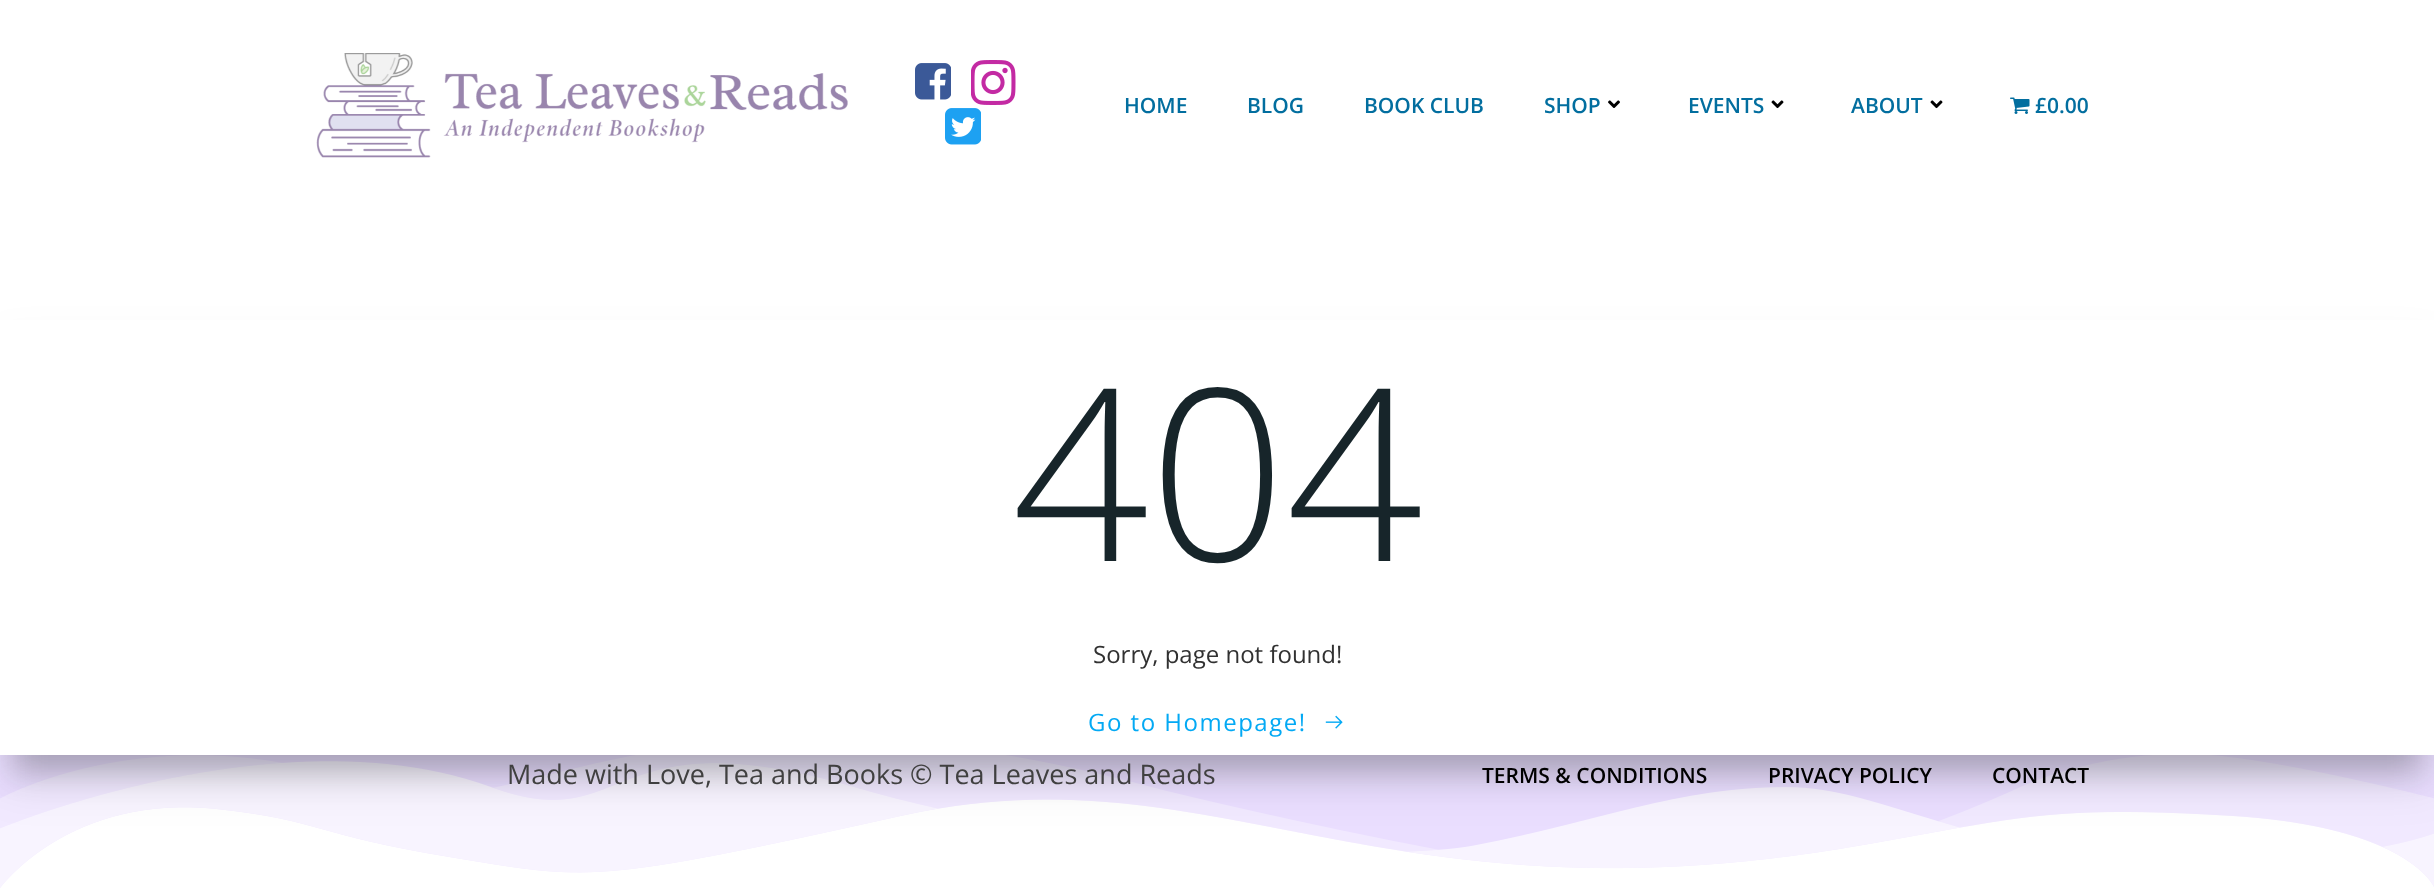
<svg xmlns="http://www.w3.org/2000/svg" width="2434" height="888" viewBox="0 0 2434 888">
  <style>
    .t1 { font: 600 21px Open Sans; fill: #026e9f; }
    .t2 { font: 300 240px Open Sans; fill: #17252a; }
    .t3 { font: 24px Open Sans; fill: #313131; }
    .t4 { font: 24px Open Sans; letter-spacing: 1.5px; fill: #03a9f4; }
    .t5 { font: 27px Open Sans; fill: #404040; }
    .t6 { font: 600 21px Open Sans; fill: #000; }
  </style>
  <rect width="100%" height="100%" fill="#fff"/>
  <image x="316" y="53" width="532" height="105" href="images/1.png"/>
  <image x="915" y="63" width="36" height="37" href="images/2.png"/>
  <image x="971" y="60" width="45" height="45" href="images/3.png"/>
  <image x="945" y="108" width="36" height="37" href="images/4.png"/>
  <text x="1124" y="113" class="t1">HOME</text>
  <text x="1247" y="113" class="t1">BLOG</text>
  <text x="1364" y="113" class="t1">BOOK CLUB</text>
  <text x="1544" y="113" class="t1">SHOP</text>
  <image x="1608" y="100" width="12" height="8" href="images/5.png"/>
  <text x="1688" y="113" class="t1">EVENTS</text>
  <image x="1771" y="100" width="13" height="9" href="images/6.png"/>
  <text x="1851" y="113" class="t1">ABOUT</text>
  <image x="1930" y="100" width="13" height="9" href="images/6.png"/>
  <image x="2010" y="97" width="20" height="17" href="images/7.png"/>
  <text x="2035" y="113" class="t1">£0.00</text>
  <rect x="0" y="755" width="2434" height="133" fill="#eadeff"/>
  <image x="0" y="755" width="2434" height="133" href="images/9.png"/>
  <rect x="0" y="347" width="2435" height="438" fill="#00000014" filter="blur(22.5px)"/>
  <rect x="15" y="362" width="2405" height="408" fill="#3134394d" filter="blur(15px)"/>
  <rect x="0" y="320" width="2434" height="435" fill="#fff"/>
  <text x="1012" y="561" class="t2">404</text>
  <text x="1093" y="663" class="t3">Sorry, page not found!</text>
  <text x="1088" y="731" class="t4">Go to Homepage!</text>
  <image x="1325" y="715" width="18" height="14" href="images/8.png"/>
  <text x="507" y="784" class="t5">Made with Love, Tea and Books © Tea Leaves and Reads</text>
  <text x="1482" y="783" class="t6">TERMS &amp; CONDITIONS</text>
  <text x="1768" y="783" class="t6">PRIVACY POLICY</text>
  <text x="1992" y="783" class="t6">CONTACT</text>
</svg>
